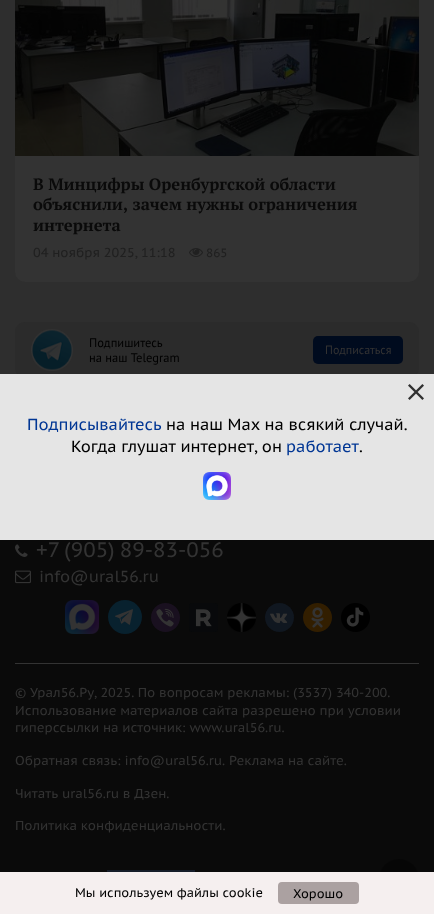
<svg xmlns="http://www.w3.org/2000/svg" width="434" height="914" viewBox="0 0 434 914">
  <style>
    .t1 { font: bold 16.5px PT Serif; fill: #0a0a0a; }
    .t2 { font: 13px PT Sans Caption; fill: #202020; }
    .t3 { font: 12px PT Sans Caption; fill: #202020; }
    .t4 { font: 12.5px PT Sans; fill: #000; }
    .t5 { font: 12px PT Sans; fill: #333; }
    .t6 { font: 16px PT Sans Caption; fill: #013694; }
    .t7 { font: 16px PT Sans Caption; fill: #000; }
    .t8 { font: 21px PT Sans Caption; fill: #333; }
    .t9 { font: 16px PT Sans Caption; fill: #333; }
    .t10 { font: 13px PT Sans Caption; fill: #333; }
    .t11 { font: 12.5px PT Sans Caption; fill: #000; }
  </style>
  <rect width="100%" height="100%" fill="#2e2e2e"/>
  <rect x="15" y="-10" width="404" height="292" rx="10" fill="#333"/>
  <image x="15" y="0" width="404" height="156" href="images/1.png"/>
  <text x="33" y="190" class="t1">В Минцифры Оренбургской области</text>
  <text x="33" y="210" class="t1">объяснили, зачем нужны ограничения</text>
  <text x="33" y="231" class="t1">интернета</text>
  <text x="33" y="257" class="t2">04 ноября 2025, 11:18</text>
  <image x="189" y="248" width="14" height="9" href="images/2.png"/>
  <text x="206" y="257" class="t3">865</text>
  <rect x="15" y="322" width="404" height="56" rx="10" fill="#2b2b2b"/>
  <image x="31" y="329" width="42" height="42" href="images/3.png"/>
  <text x="89" y="347" class="t4">Подпишитесь</text>
  <text x="89" y="362" class="t4">на наш Telegram</text>
  <rect x="313" y="336" width="90" height="28" rx="5" fill="#000b1e"/>
  <text x="325" y="354" class="t5">Подписаться</text>
  <rect x="0" y="374" width="434" height="166" fill="#e5e5e5"/>
  <image x="408" y="384" width="16" height="16" href="images/4.png"/>
  <text x="27" y="430" class="t6">Подписывайтесь</text>
  <text x="166" y="430" class="t7">на наш Max на всякий случай.</text>
  <text x="71" y="452" class="t7">Когда глушат интернет, он</text>
  <text x="286" y="452" class="t6">работает</text>
  <text x="359" y="452" class="t7">.</text>
  <image x="203" y="472" width="28" height="28" href="images/5.png"/>
  <rect x="0" y="540" width="434" height="332" fill="#0a0a0a"/>
  <image x="15" y="544" width="13" height="13" href="images/6.png"/>
  <text x="36" y="557" word-spacing="-1" class="t8">+7 (905) 89-83-056</text>
  <image x="15" y="570" width="16" height="14" href="images/7.png"/>
  <text x="39" y="582" class="t9">info@ural56.ru</text>
  <image x="65" y="600" width="34" height="34" href="images/8.png"/>
  <circle cx="125" cy="617" r="17" fill="#08212e"/>
  <image x="115" y="609" width="18" height="16" href="images/9.png"/>
  <image x="151" y="603" width="29" height="29" href="images/10.png"/>
  <image x="189" y="603" width="29" height="29" href="images/11.png"/>
  <image x="227" y="603" width="29" height="29" href="images/12.png"/>
  <circle cx="279.5" cy="617.5" r="14.5" fill="#101720"/>
  <image x="270" y="613" width="18" height="10" href="images/13.png"/>
  <image x="303" y="603" width="29" height="29" href="images/14.png"/>
  <image x="341" y="603" width="29" height="29" href="images/15.png"/>
  <rect x="15" y="663" width="404" height="1" fill="#333"/>
  <text x="15" y="697" class="t10">© Урал56.Ру, 2025. По вопросам рекламы: (3537) 340-200.</text>
  <text x="15" y="715" class="t10">Использование материалов сайта разрешено при условии</text>
  <text x="15" y="732" class="t10">гиперссылки на источник: www.ural56.ru.</text>
  <text x="15" y="765" class="t10">Обратная связь: info@ural56.ru.</text>
  <text x="229" y="765" class="t10">Реклама на сайте.</text>
  <text x="15" y="798" class="t10">Читать ural56.ru в Дзен.</text>
  <text x="15" y="830" class="t10">Политика конфиденциальности.</text>
  <image x="107" y="870" width="88" height="2" href="images/16.png"/>
  <image x="380" y="859" width="38" height="13" href="images/17.png"/>
  <rect x="0" y="872" width="434" height="42" fill="#f5efef"/>
  <text x="75" y="897" class="t11">Мы используем файлы cookie</text>
  <rect x="278" y="882" width="81" height="22" rx="4" fill="#aba1a1"/>
  <text x="293" y="898" class="t11">Хорошо</text>
</svg>
